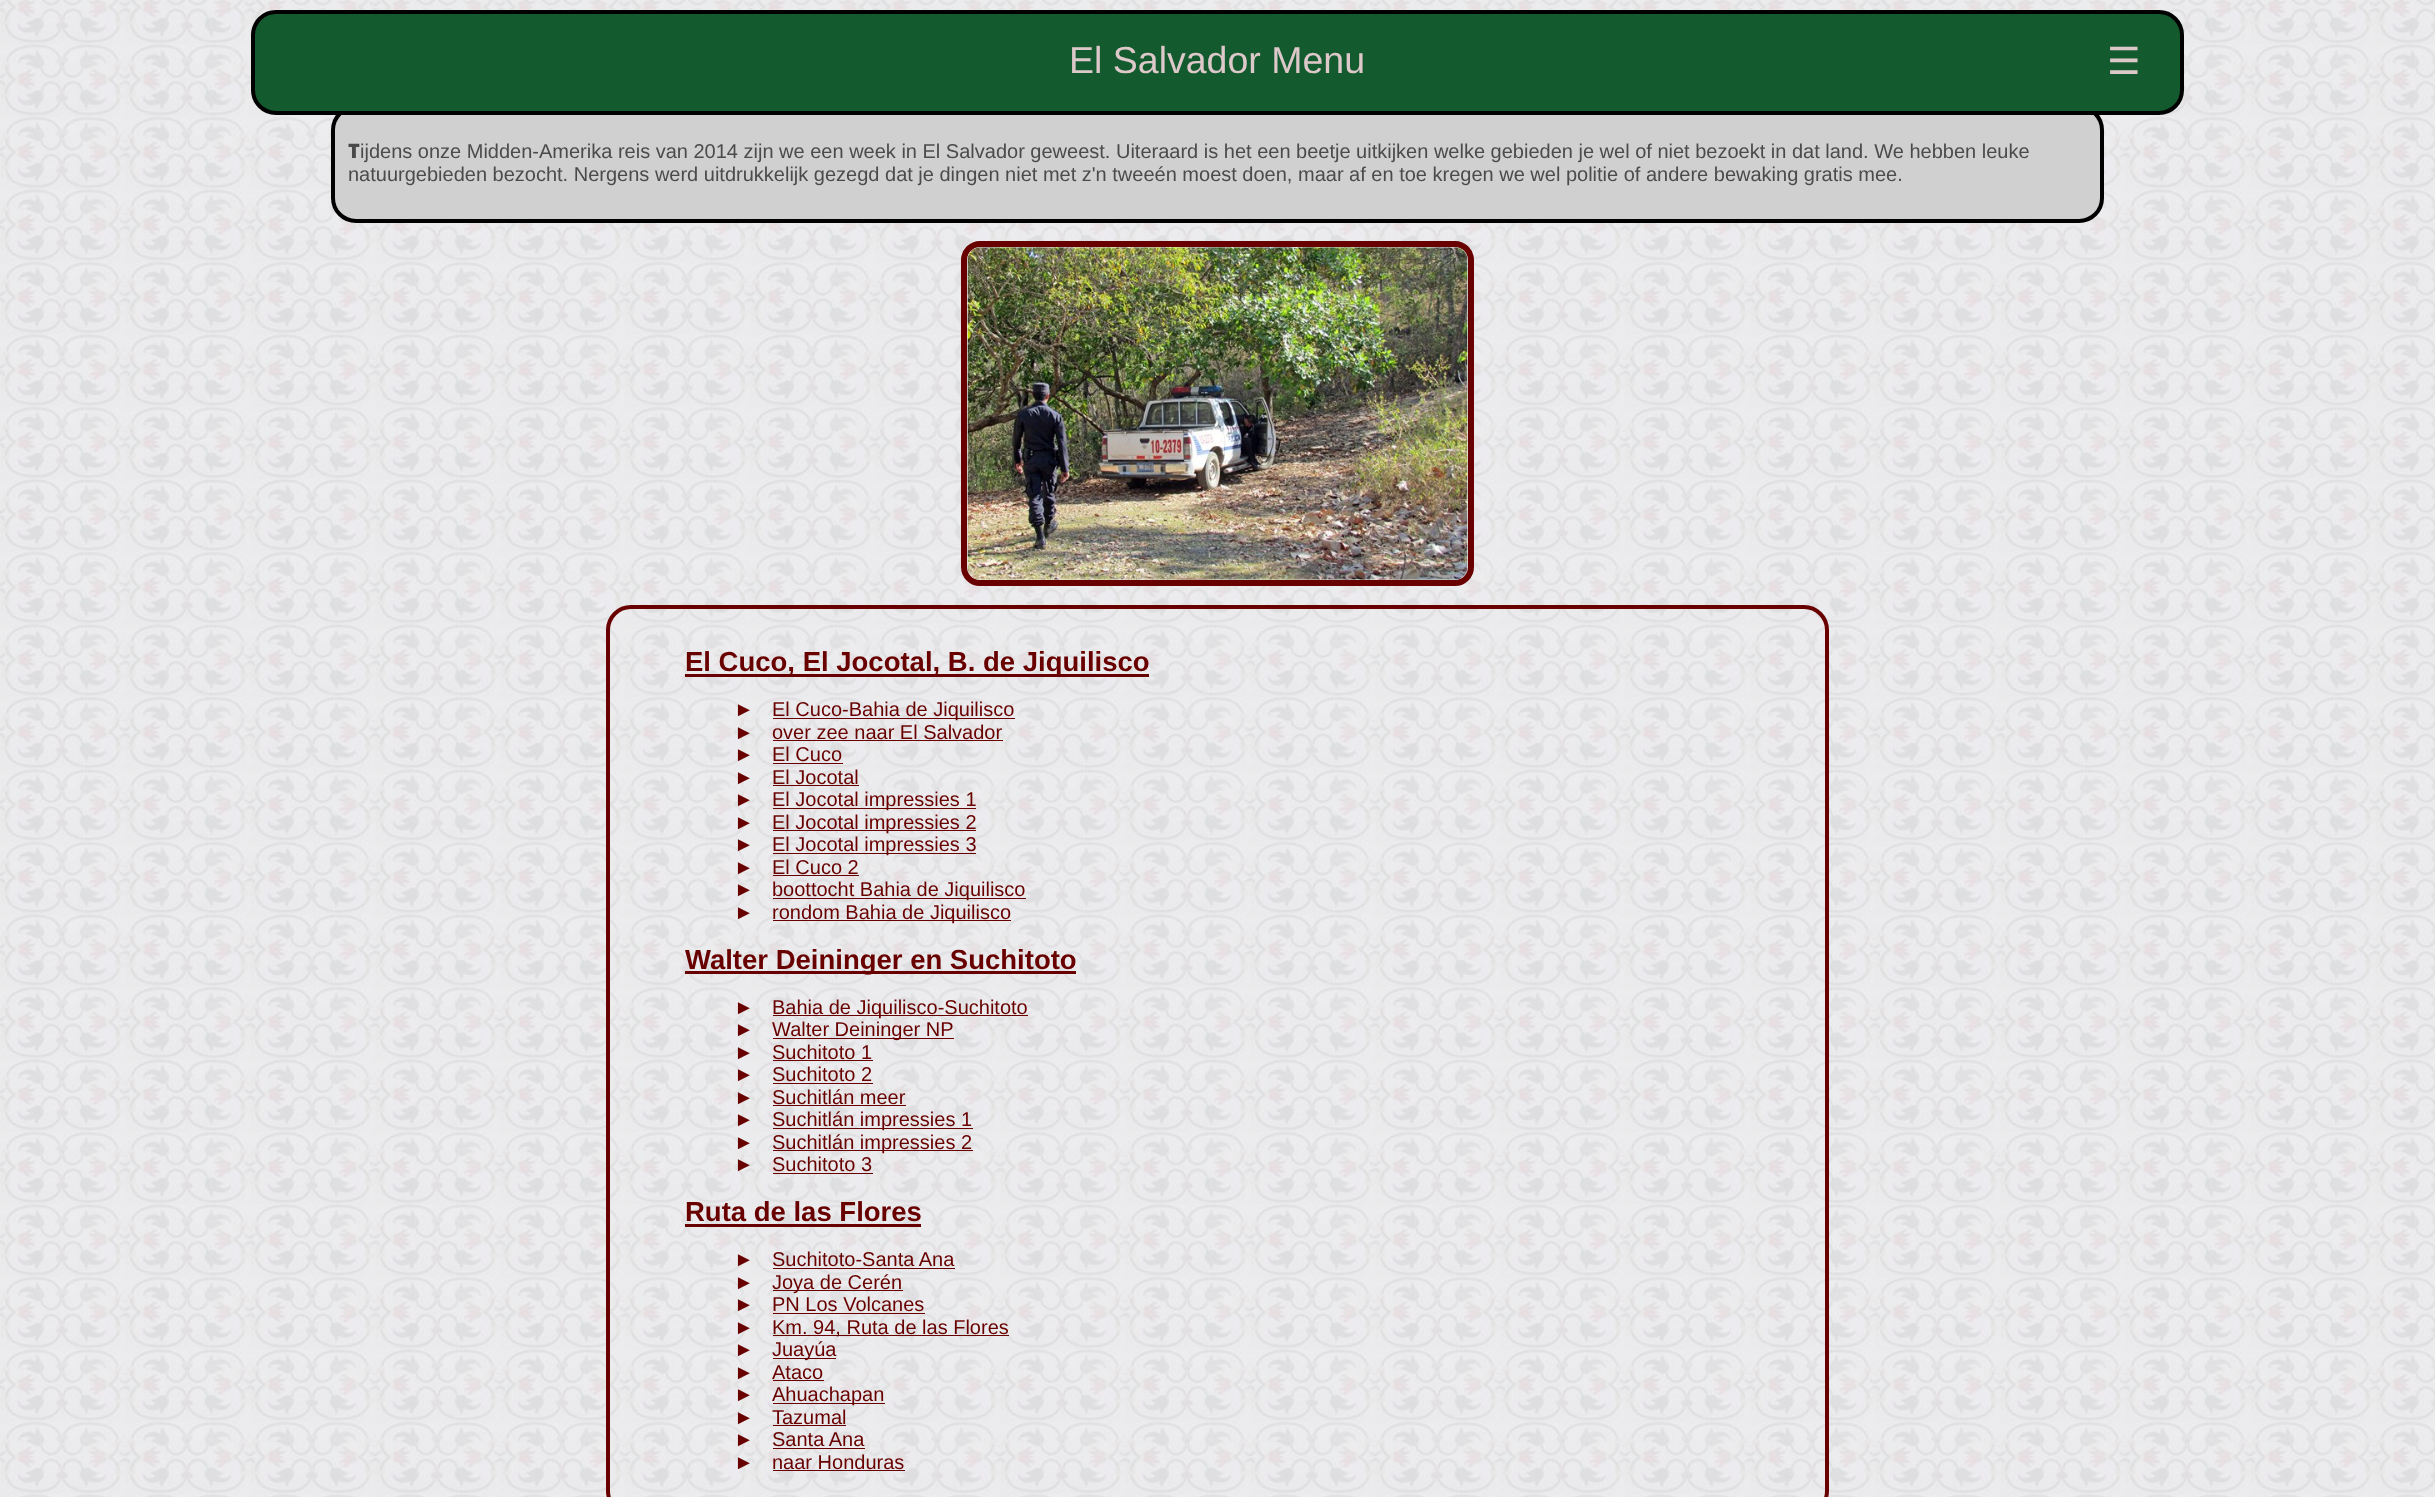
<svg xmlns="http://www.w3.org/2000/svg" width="2435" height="1497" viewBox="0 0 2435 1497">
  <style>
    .t1 { font: 37.5px Liberation Sans; fill: #ddc8ca; }
    .t2 { font: 37.5px DejaVu Sans; fill: #ddc8ca; }
    .t3 { font: 900 20px Noto Sans; fill: #4b4b4b; }
    .t4 { font: 20px Liberation Sans; fill: #4b4b4b; }
    .t5 { font: bold 27.5px Liberation Sans; fill: #680000; }
    .t6 { font: 20px Liberation Sans; fill: #680000; }
  </style>
  <rect width="100%" height="100%" fill="#fff"/>
  <image x="0" y="0" width="2435" height="1497" href="images/1.png"/>
  <rect x="333" y="107" width="1769" height="114" rx="23" fill="#d0d0d0" stroke="#000" stroke-width="4"/>
  <rect x="253" y="12" width="1929" height="101" rx="23" fill="#135a2e" stroke="#000" stroke-width="4"/>
  <text x="1069" y="73" class="t1">El Salvador Menu</text>
  <text x="2107" y="74" class="t2">☰</text>
  <text x="348" y="158" class="t3">T</text>
  <text x="360" y="158" class="t4">ijdens onze Midden-Amerika reis van 2014 zijn we een week in El Salvador geweest. Uiteraard is het een beetje uitkijken welke gebieden je wel of niet bezoekt in dat land. We hebben leuke</text>
  <text x="348" y="181" class="t4">natuurgebieden bezocht. Nergens werd uitdrukkelijk gezegd dat je dingen niet met z'n tweeén moest doen, maar af en toe kregen we wel politie of andere bewaking gratis mee.</text>
  <rect x="964" y="244" width="507" height="339" rx="16" fill="none" stroke="#680000" stroke-width="6"/>
  <image x="967" y="247" width="501" height="333" href="images/2.png"/>
  <rect x="608" y="607" width="1219" height="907" rx="23" fill="none" stroke="#680000" stroke-width="4"/>
  <rect x="685" y="674" width="464" height="3" fill="#680000"/>
  <text x="685" y="671" class="t5">El Cuco, El Jocotal, B. de Jiquilisco</text>
  <text x="734" y="716" class="t6">►</text>
  <rect x="773" y="718" width="242" height="1" fill="#680000"/>
  <text x="772" y="716" class="t6">El Cuco-Bahia de Jiquilisco</text>
  <text x="734" y="739" class="t6">►</text>
  <text x="772" y="739" class="t6">over zee naar El Salvador</text>
  <rect x="773" y="740" width="230" height="1" fill="#680000"/>
  <text x="734" y="761" class="t6">►</text>
  <text x="772" y="761" class="t6">El Cuco</text>
  <rect x="773" y="763" width="70" height="1" fill="#680000"/>
  <text x="734" y="784" class="t6">►</text>
  <text x="772" y="784" class="t6">El Jocotal</text>
  <rect x="773" y="785" width="86" height="1" fill="#680000"/>
  <text x="734" y="806" class="t6">►</text>
  <rect x="773" y="808" width="203" height="1" fill="#680000"/>
  <text x="772" y="806" class="t6">El Jocotal impressies 1</text>
  <text x="734" y="829" class="t6">►</text>
  <rect x="773" y="830" width="203" height="1" fill="#680000"/>
  <text x="772" y="829" class="t6">El Jocotal impressies 2</text>
  <text x="734" y="851" class="t6">►</text>
  <rect x="773" y="853" width="203" height="1" fill="#680000"/>
  <text x="772" y="851" class="t6">El Jocotal impressies 3</text>
  <text x="734" y="874" class="t6">►</text>
  <text x="772" y="874" class="t6">El Cuco 2</text>
  <rect x="773" y="875" width="86" height="1" fill="#680000"/>
  <text x="734" y="896" class="t6">►</text>
  <rect x="773" y="898" width="253" height="1" fill="#680000"/>
  <text x="772" y="896" class="t6">boottocht Bahia de Jiquilisco</text>
  <text x="734" y="919" class="t6">►</text>
  <rect x="773" y="920" width="238" height="1" fill="#680000"/>
  <text x="772" y="919" class="t6">rondom Bahia de Jiquilisco</text>
  <rect x="685" y="971" width="391" height="3" fill="#680000"/>
  <text x="685" y="969" class="t5">Walter Deininger en Suchitoto</text>
  <text x="734" y="1014" class="t6">►</text>
  <rect x="773" y="1015" width="255" height="1" fill="#680000"/>
  <text x="772" y="1014" class="t6">Bahia de Jiquilisco-Suchitoto</text>
  <text x="734" y="1036" class="t6">►</text>
  <rect x="773" y="1038" width="181" height="1" fill="#680000"/>
  <text x="772" y="1036" class="t6">Walter Deininger NP</text>
  <text x="734" y="1059" class="t6">►</text>
  <text x="772" y="1059" class="t6">Suchitoto 1</text>
  <rect x="773" y="1060" width="100" height="1" fill="#680000"/>
  <text x="734" y="1081" class="t6">►</text>
  <text x="772" y="1081" class="t6">Suchitoto 2</text>
  <rect x="773" y="1083" width="100" height="1" fill="#680000"/>
  <text x="734" y="1104" class="t6">►</text>
  <text x="772" y="1104" class="t6">Suchitlán meer</text>
  <rect x="773" y="1105" width="133" height="1" fill="#680000"/>
  <text x="734" y="1126" class="t6">►</text>
  <rect x="773" y="1128" width="200" height="1" fill="#680000"/>
  <text x="772" y="1126" class="t6">Suchitlán impressies 1</text>
  <text x="734" y="1149" class="t6">►</text>
  <rect x="773" y="1150" width="200" height="1" fill="#680000"/>
  <text x="772" y="1149" class="t6">Suchitlán impressies 2</text>
  <text x="734" y="1171" class="t6">►</text>
  <text x="772" y="1171" class="t6">Suchitoto 3</text>
  <rect x="773" y="1173" width="100" height="1" fill="#680000"/>
  <text x="685" y="1221" class="t5">Ruta de las Flores</text>
  <rect x="685" y="1224" width="236" height="3" fill="#680000"/>
  <text x="734" y="1266" class="t6">►</text>
  <text x="772" y="1266" class="t6">Suchitoto-Santa Ana</text>
  <rect x="773" y="1268" width="182" height="1" fill="#680000"/>
  <text x="734" y="1289" class="t6">►</text>
  <rect x="773" y="1290" width="130" height="1" fill="#680000"/>
  <text x="772" y="1289" class="t6">Joya de Cerén</text>
  <text x="734" y="1311" class="t6">►</text>
  <text x="772" y="1311" class="t6">PN Los Volcanes</text>
  <rect x="773" y="1313" width="152" height="1" fill="#680000"/>
  <text x="734" y="1334" class="t6">►</text>
  <rect x="773" y="1335" width="236" height="1" fill="#680000"/>
  <text x="772" y="1334" class="t6">Km. 94, Ruta de las Flores</text>
  <text x="734" y="1356" class="t6">►</text>
  <rect x="773" y="1358" width="63" height="1" fill="#680000"/>
  <text x="772" y="1356" class="t6">Juayúa</text>
  <text x="734" y="1379" class="t6">►</text>
  <text x="772" y="1379" class="t6">Ataco</text>
  <rect x="773" y="1380" width="51" height="1" fill="#680000"/>
  <text x="734" y="1401" class="t6">►</text>
  <rect x="773" y="1403" width="112" height="1" fill="#680000"/>
  <text x="772" y="1401" class="t6">Ahuachapan</text>
  <text x="734" y="1424" class="t6">►</text>
  <text x="772" y="1424" class="t6">Tazumal</text>
  <rect x="773" y="1425" width="73" height="1" fill="#680000"/>
  <text x="734" y="1446" class="t6">►</text>
  <text x="772" y="1446" class="t6">Santa Ana</text>
  <rect x="773" y="1448" width="92" height="1" fill="#680000"/>
  <text x="734" y="1469" class="t6">►</text>
  <text x="772" y="1469" class="t6">naar Honduras</text>
  <rect x="773" y="1470" width="132" height="1" fill="#680000"/>
</svg>
